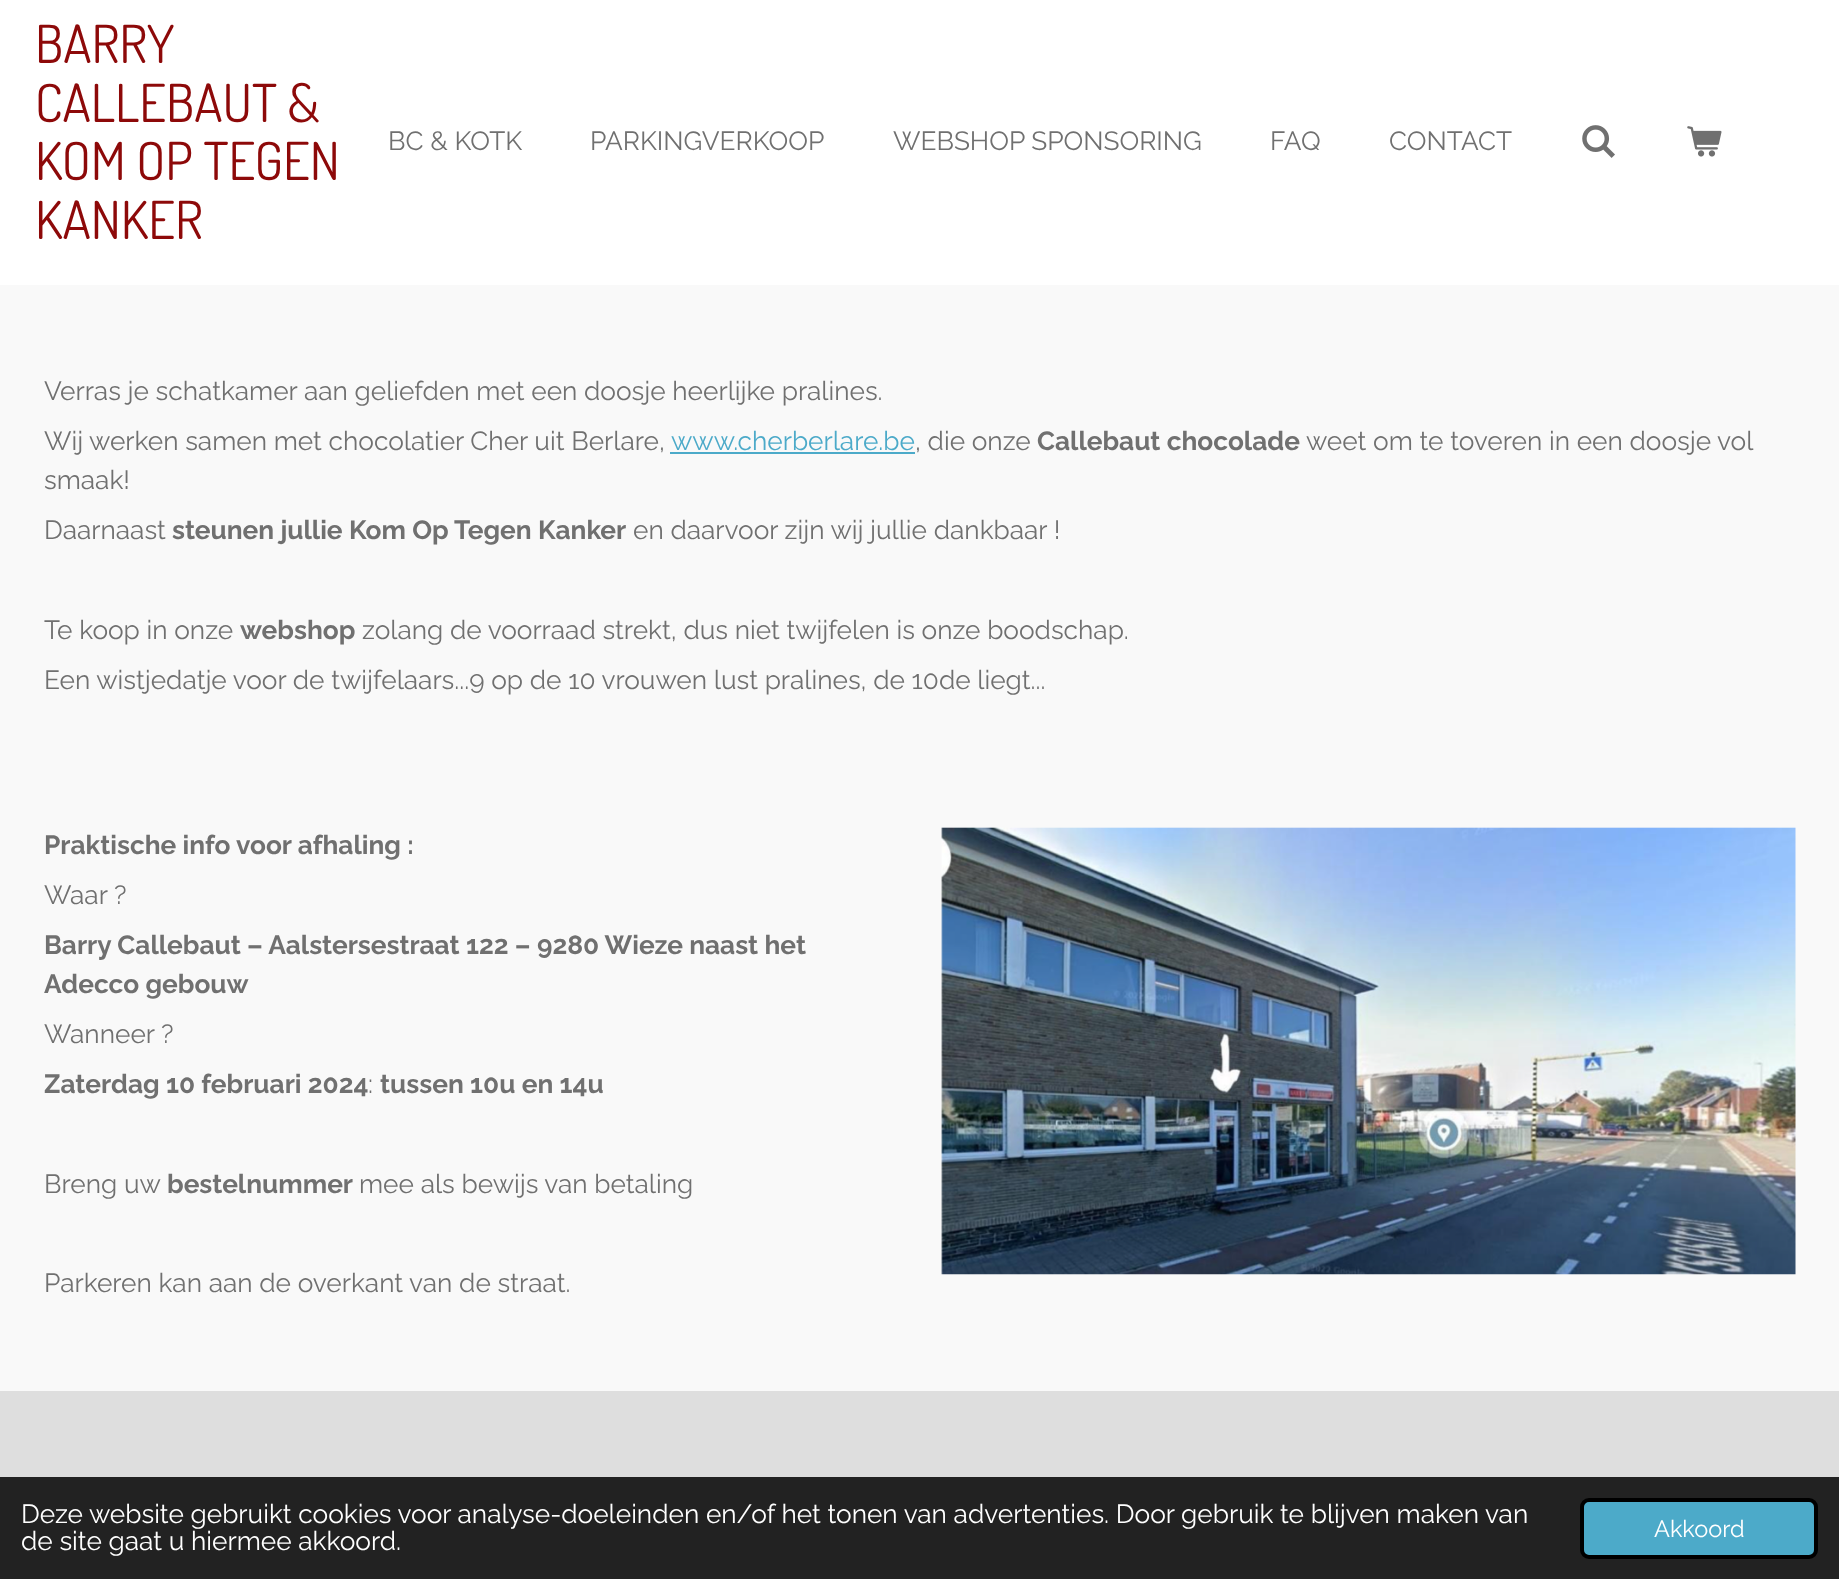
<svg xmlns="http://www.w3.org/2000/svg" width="1839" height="1579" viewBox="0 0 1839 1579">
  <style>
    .t1 { font: 52.5px Dosis; fill: #8d0909; }
    .t2 { font: 26.25px Raleway; fill: #707070; }
    .t3 { font: 26.25px Raleway; fill: #4caac9; }
    .t4 { font: bold 26.25px Raleway; fill: #707070; }
    .t5 { font: 26.25px Raleway; fill: #fff; }
    .t6 { font: 23.5px Raleway; fill: #fff; }
  </style>
  <rect width="100%" height="100%" fill="#fff"/>
  <text x="35" y="63" class="t1">BARRY</text>
  <text x="35" y="122" class="t1">CALLEBAUT &amp;</text>
  <text x="35" y="180" class="t1">KOM OP TEGEN</text>
  <text x="35" y="239" class="t1">KANKER</text>
  <text x="388" y="150" class="t2">BC &amp; KOTK</text>
  <text x="590" y="150" class="t2">PARKINGVERKOOP</text>
  <text x="893" y="150" class="t2">WEBSHOP SPONSORING</text>
  <text x="1270" y="150" class="t2">FAQ</text>
  <text x="1389" y="150" class="t2">CONTACT</text>
  <image x="1582" y="125" width="33" height="33" href="images/1.png"/>
  <image x="1687" y="126" width="35" height="31" href="images/2.png"/>
  <rect x="0" y="285" width="1839" height="1106" fill="#f9f9f9"/>
  <text x="44" y="400" class="t2">Verras je schatkamer aan geliefden met een doosje heerlijke pralines.</text>
  <text x="44" y="450" class="t2">Wij werken samen met chocolatier Cher uit Berlare,</text>
  <text x="671" y="450" class="t3">www.cherberlare.be</text>
  <text x="915" y="450" class="t2">, die onze</text>
  <rect x="670" y="452" width="245" height="2" fill="#4caac9"/>
  <text x="1037" y="450" class="t4">Callebaut chocolade</text>
  <text x="1306" y="450" class="t2">weet om te toveren in een doosje vol</text>
  <text x="44" y="489" class="t2">smaak!</text>
  <text x="44" y="539" class="t2">Daarnaast</text>
  <text x="172" y="539" class="t4">steunen jullie Kom Op Tegen Kanker</text>
  <text x="633" y="539" class="t2">en daarvoor zijn wij jullie dankbaar !</text>
  <text x="44" y="639" class="t2">Te koop in onze</text>
  <text x="240" y="639" class="t4">webshop</text>
  <text x="362" y="639" class="t2">zolang de voorraad strekt, dus niet twijfelen is onze boodschap.</text>
  <text x="44" y="689" class="t2">Een wistjedatje voor de twijfelaars...9 op de 10 vrouwen lust pralines, de 10de liegt...</text>
  <text x="44" y="854" class="t4">Praktische info voor afhaling :</text>
  <text x="44" y="904" class="t2">Waar ?</text>
  <text x="44" y="954" class="t4">Barry Callebaut – Aalstersestraat 122 – 9280 Wieze naast het</text>
  <text x="44" y="993" class="t4">Adecco gebouw</text>
  <text x="44" y="1043" class="t2">Wanneer ?</text>
  <text x="44" y="1093" class="t4">Zaterdag 10 februari 2024</text>
  <text x="368" y="1093" class="t2">:</text>
  <text x="380" y="1093" class="t4">tussen 10u en 14u</text>
  <text x="44" y="1193" class="t2">Breng uw</text>
  <text x="167" y="1193" class="t4">bestelnummer</text>
  <text x="359" y="1193" class="t2">mee als bewijs van betaling</text>
  <text x="44" y="1292" class="t2">Parkeren kan aan de overkant van de straat.</text>
  <image x="941" y="827" width="855" height="448" href="images/3.png"/>
  <rect x="0" y="1391" width="1839" height="86" fill="#dedede"/>
  <rect x="0" y="1477" width="1839" height="102" fill="#222"/>
  <text x="21" y="1523" class="t5">Deze website gebruikt cookies voor analyse-doeleinden en/of het tonen van advertenties. Door gebruik te blijven maken van</text>
  <text x="21" y="1550" class="t5">de site gaat u hiermee akkoord.</text>
  <rect x="1582" y="1500" width="234" height="57" rx="7" fill="#4caac9" stroke="#000" stroke-width="4"/>
  <text x="1654" y="1537" class="t6">Akkoord</text>
</svg>
